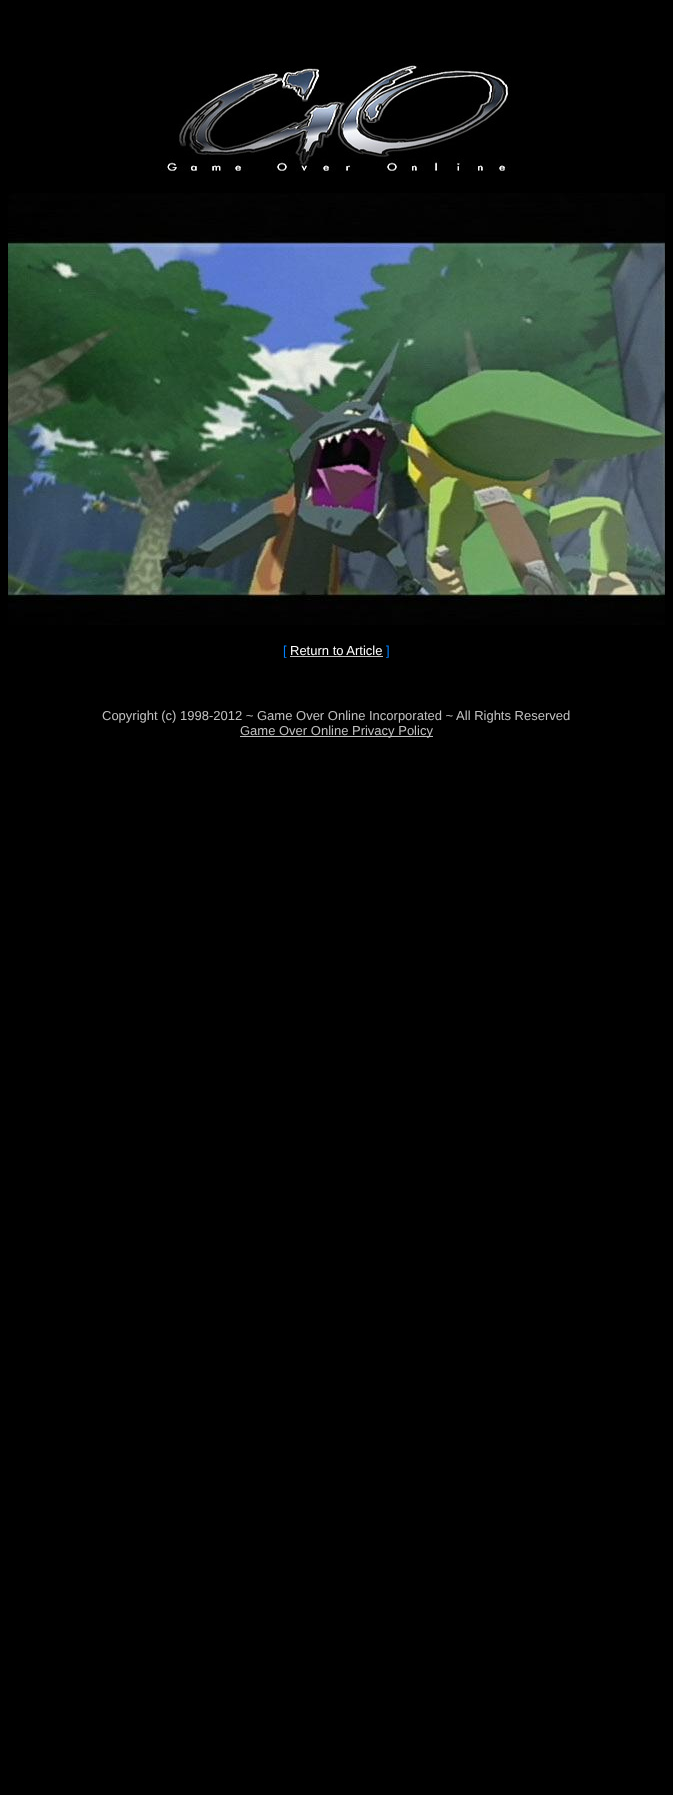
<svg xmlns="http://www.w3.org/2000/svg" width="673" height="1795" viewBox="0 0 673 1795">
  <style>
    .t1 { font: 13px Liberation Sans; fill: #0080ff; }
    .t2 { font: 13px Liberation Sans; fill: #fff; }
    .t3 { font: 13px Liberation Sans; fill: #c0c0c0; }
  </style>
  <rect width="100%" height="100%" fill="#000"/>
  <image x="160" y="63" width="351" height="109" href="images/1.png"/>
  <image x="8" y="193" width="657" height="432" href="images/2.png"/>
  <text x="283" y="655" class="t1">[</text>
  <text x="290" y="655" class="t2">Return to Article</text>
  <rect x="290" y="656" width="93" height="1" fill="#c0c0c0"/>
  <text x="386" y="655" class="t1">]</text>
  <text x="102" y="720" class="t3">Copyright (c) 1998-2012 ~ Game Over Online Incorporated ~ All Rights Reserved</text>
  <rect x="240" y="736" width="193" height="1" fill="#c0c0c0"/>
  <text x="240" y="735" class="t3">Game Over Online Privacy Policy</text>
</svg>
